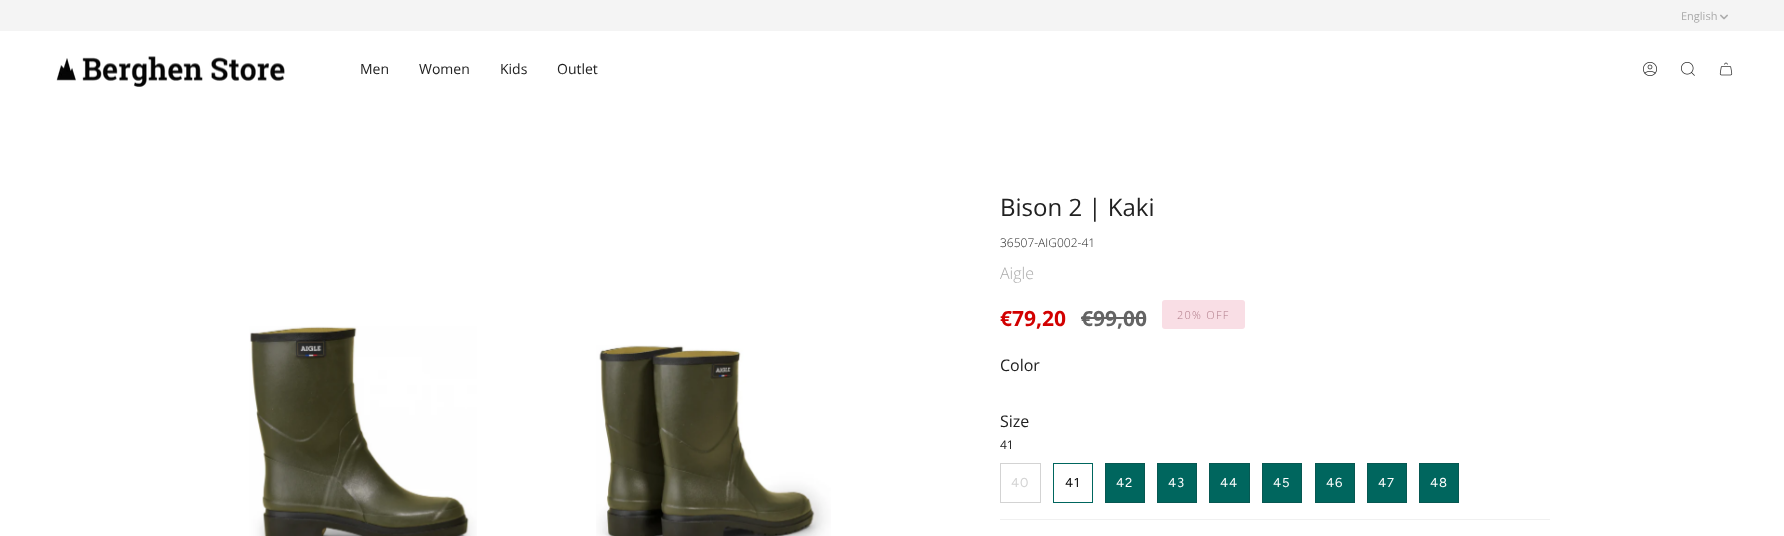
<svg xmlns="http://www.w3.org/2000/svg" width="1784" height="536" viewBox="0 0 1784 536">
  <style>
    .t1 { font: 11px Open Sans; fill: #aaa; }
    .t2 { font: 14px Open Sans; fill: #212121; }
    .t3 { font: 24px Open Sans; fill: #212121; }
    .t4 { font: 300 12px Open Sans; fill: #212121; }
    .t5 { font: 300 16px Open Sans; fill: #aaa; }
    .t6 { font: bold 21px Open Sans; fill: #d20000; }
    .t7 { font: bold 21px Open Sans; fill: #646464; }
    .t8 { font: 300 11px Open Sans; letter-spacing: 1.25px; fill: #af7b88; }
    .t9 { font: 16px Open Sans; fill: #212121; }
    .t10 { font: 12px Open Sans; fill: #212121; }
    .t11 { font: 13px Figtree; letter-spacing: 1px; fill: #d3d3d3; }
    .t12 { font: 13px Figtree; letter-spacing: 1px; fill: #000; }
    .t13 { font: 13px Figtree; letter-spacing: 1px; fill: #fff; }
  </style>
  <rect width="100%" height="100%" fill="#fff"/>
  <rect x="0" y="0" width="1784" height="31" fill="#f4f4f4"/>
  <text x="1681" y="20" class="t1">English</text>
  <image x="1720" y="14" width="8" height="6" href="images/1.png"/>
  <image x="56" y="56" width="229" height="31" href="images/2.png"/>
  <text x="360" y="74" class="t2">Men</text>
  <text x="419" y="74" class="t2">Women</text>
  <text x="500" y="74" class="t2">Kids</text>
  <text x="557" y="74" class="t2">Outlet</text>
  <image x="1643" y="62" width="14" height="14" href="images/3.png"/>
  <image x="1681" y="62" width="14" height="14" href="images/4.png"/>
  <image x="1719" y="62" width="14" height="14" href="images/5.png"/>
  <image x="249" y="326" width="228" height="210" href="images/6.png"/>
  <image x="596" y="345" width="235" height="191" href="images/7.png"/>
  <text x="1000" y="216" class="t3">Bison 2 | Kaki</text>
  <text x="1000" y="247" class="t4">36507-AIG002-41</text>
  <text x="1000" y="279" class="t5">Aigle</text>
  <text x="1000" y="326" class="t6">€79,20</text>
  <text x="1081" y="326" class="t7">€99,00</text>
  <rect x="1081" y="317" width="65" height="2" fill="#646464"/>
  <rect x="1162" y="300" width="83" height="29" rx="3" fill="#f9dee5"/>
  <text x="1177" y="319" class="t8">20% OFF</text>
  <text x="1000" y="371" class="t9">Color</text>
  <rect x="1000" y="519" width="550" height="1" fill="#f0f0f0"/>
  <text x="1000" y="427" class="t9">Size</text>
  <text x="1000" y="449" class="t10">41</text>
  <rect x="1000.5" y="463.5" width="40" height="39" fill="none" stroke="#d3d3d3"/>
  <text x="1011" y="487" class="t11">40</text>
  <rect x="1053.5" y="463.5" width="39" height="39" fill="none" stroke="#00665e"/>
  <text x="1065" y="487" class="t12">41</text>
  <rect x="1105.5" y="463.5" width="39" height="39" fill="#00665e" stroke="#075852"/>
  <text x="1116" y="487" class="t13">42</text>
  <rect x="1157.5" y="463.5" width="39" height="39" fill="#00665e" stroke="#075852"/>
  <text x="1168" y="487" class="t13">43</text>
  <rect x="1209.5" y="463.5" width="40" height="39" fill="#00665e" stroke="#075852"/>
  <text x="1220" y="487" class="t13">44</text>
  <rect x="1262.5" y="463.5" width="39" height="39" fill="#00665e" stroke="#075852"/>
  <text x="1273" y="487" class="t13">45</text>
  <rect x="1315.5" y="463.5" width="39" height="39" fill="#00665e" stroke="#075852"/>
  <text x="1326" y="487" class="t13">46</text>
  <rect x="1367.5" y="463.5" width="39" height="39" fill="#00665e" stroke="#075852"/>
  <text x="1378" y="487" class="t13">47</text>
  <rect x="1419.5" y="463.5" width="39" height="39" fill="#00665e" stroke="#075852"/>
  <text x="1430" y="487" class="t13">48</text>
</svg>
